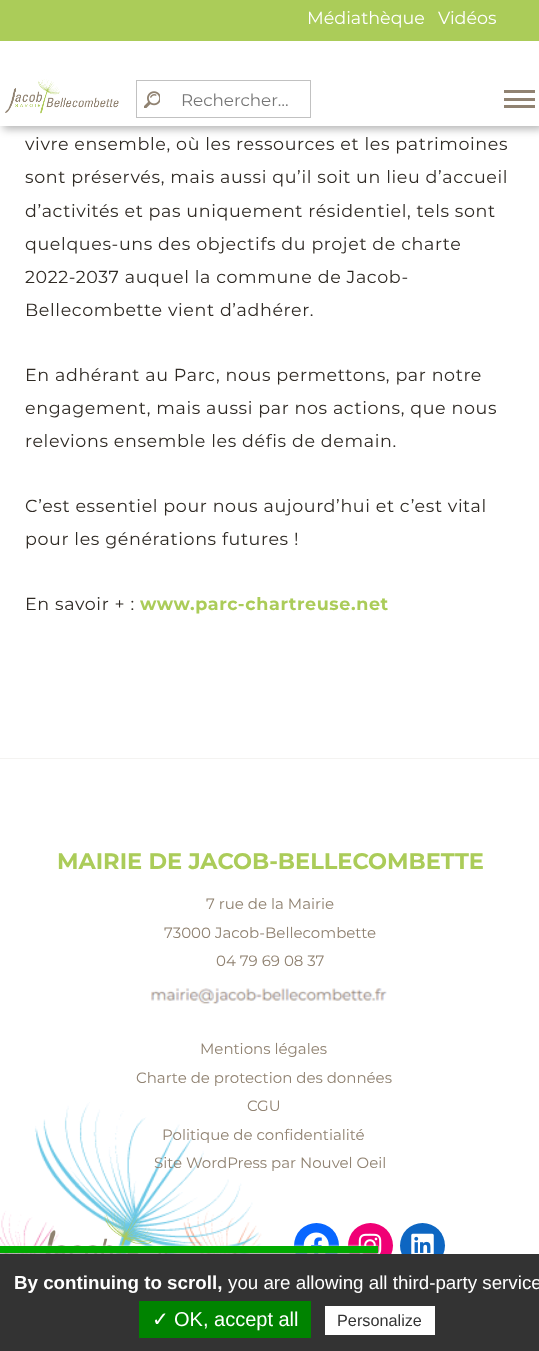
<svg xmlns="http://www.w3.org/2000/svg" width="539" height="1351" viewBox="0 0 539 1351">
  <style>
    .t1 { font: 17.5px Montserrat; fill: #fff; }
    .t2 { font: 16.75px Montserrat; fill: #757575; }
    .t3 { font: 17.5px Montserrat; letter-spacing: 0.62px; fill: #2f2a24; }
    .t4 { font: bold 17.5px Montserrat; letter-spacing: 0.62px; fill: #abcc59; }
    .t5 { font: bold 22.5px Montserrat; fill: #abcc59; }
    .t6 { font: 15px Montserrat; fill: #908271; }
    .t7 { font: bold 18.75px Liberation Sans; fill: #fff; }
    .t8 { font: 18.75px Liberation Sans; fill: #fff; }
    .t9 { font: 20px DejaVu Sans; fill: #fff; }
    .t10 { font: 20px Liberation Sans; fill: #fff; }
    .t11 { font: 16.25px Liberation Sans; fill: #333; }
  </style>
  <rect width="100%" height="100%" fill="#fff"/>
  <rect x="3" y="3" width="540" height="126" fill="#0000004d" filter="blur(4px)"/>
  <rect x="0" y="41" width="539" height="85" fill="#fff"/>
  <rect x="0" y="0" width="539" height="41" fill="#abcc59"/>
  <text x="307" y="24" class="t1">Médiathèque</text>
  <text x="438" y="24" class="t1">Vidéos</text>
  <image x="5" y="79" width="114" height="35" href="images/1.png"/>
  <image x="144" y="91" width="16" height="17" href="images/2.png"/>
  <rect x="136.5" y="80.5" width="174" height="37" fill="none" stroke="#c1c1c1"/>
  <text x="181" y="106" class="t2">Rechercher…</text>
  <rect x="504" y="98" width="31" height="3" fill="#908271"/>
  <rect x="504" y="90" width="31" height="3" fill="#908271"/>
  <rect x="504" y="105" width="31" height="3" fill="#908271"/>
  <text x="25" y="150" class="t3">vivre ensemble, où les ressources et les patrimoines</text>
  <text x="25" y="183" class="t3">sont préservés, mais aussi qu’il soit un lieu d’accueil</text>
  <text x="25" y="217" class="t3">d’activités et pas uniquement résidentiel, tels sont</text>
  <text x="25" y="250" class="t3">quelques-uns des objectifs du projet de charte</text>
  <text x="25" y="283" class="t3">2022-2037 auquel la commune de Jacob-</text>
  <text x="25" y="316" class="t3">Bellecombette vient d’adhérer.</text>
  <text x="25" y="381" class="t3">En adhérant au Parc, nous permettons, par notre</text>
  <text x="25" y="414" class="t3">engagement, mais aussi par nos actions, que nous</text>
  <text x="25" y="447" class="t3">relevions ensemble les défis de demain.</text>
  <text x="25" y="512" class="t3">C’est essentiel pour nous aujourd’hui et c’est vital</text>
  <text x="25" y="545" class="t3">pour les générations futures !</text>
  <text x="25" y="610" class="t3">En savoir + :</text>
  <text x="140" y="610" class="t4">www.parc-chartreuse.net</text>
  <image x="0" y="1102" width="277" height="152" href="images/3.png"/>
  <rect x="0" y="758" width="539" height="1" fill="#f4f3f1"/>
  <text x="57" y="869" class="t5">MAIRIE DE JACOB-BELLECOMBETTE</text>
  <text x="206" y="909" class="t6">7 rue de la Mairie</text>
  <text x="164" y="938" class="t6">73000 Jacob-Bellecombette</text>
  <text x="216" y="966" class="t6">04 79 69 08 37</text>
  <image x="151" y="988" width="236" height="16" href="images/4.png"/>
  <text x="200" y="1054" class="t6">Mentions légales</text>
  <text x="136" y="1083" class="t6">Charte de protection des données</text>
  <text x="247" y="1111" class="t6">CGU</text>
  <text x="162" y="1140" class="t6">Politique de confidentialité</text>
  <text x="154" y="1168" class="t6">Site WordPress par Nouvel Oeil</text>
  <image x="45" y="1210" width="192" height="44" href="images/5.png"/>
  <circle cx="316.5" cy="1245.5" r="22.5" fill="#0866ff"/>
  <image x="303" y="1232" width="26" height="22" href="images/6.png"/>
  <circle cx="370.5" cy="1245.5" r="22.5" fill="#f00075"/>
  <image x="358" y="1233" width="24" height="21" href="images/7.png"/>
  <circle cx="422.5" cy="1245.5" r="22.5" fill="#0d66c2"/>
  <image x="411" y="1233" width="23" height="21" href="images/8.png"/>
  <rect x="0" y="1248" width="378" height="6" fill="#555" filter="blur(1px)"/>
  <rect x="0" y="1246" width="378" height="7" fill="#fff" filter="blur(1px)"/>
  <rect x="0" y="1246" width="378" height="7" fill="#0a0"/>
  <rect x="0" y="1254" width="539" height="97" fill="#333"/>
  <text x="14" y="1289" class="t7">By continuing to scroll,</text>
  <text x="228" y="1289" class="t8">you are allowing all third-party service</text>
  <rect x="139" y="1301" width="172" height="37" fill="#008300"/>
  <text x="152" y="1326" class="t9">✓</text>
  <text x="174" y="1326" class="t10">OK, accept all</text>
  <rect x="325" y="1306" width="110" height="29" fill="#fff"/>
  <text x="337" y="1326" class="t11">Personalize</text>
</svg>
